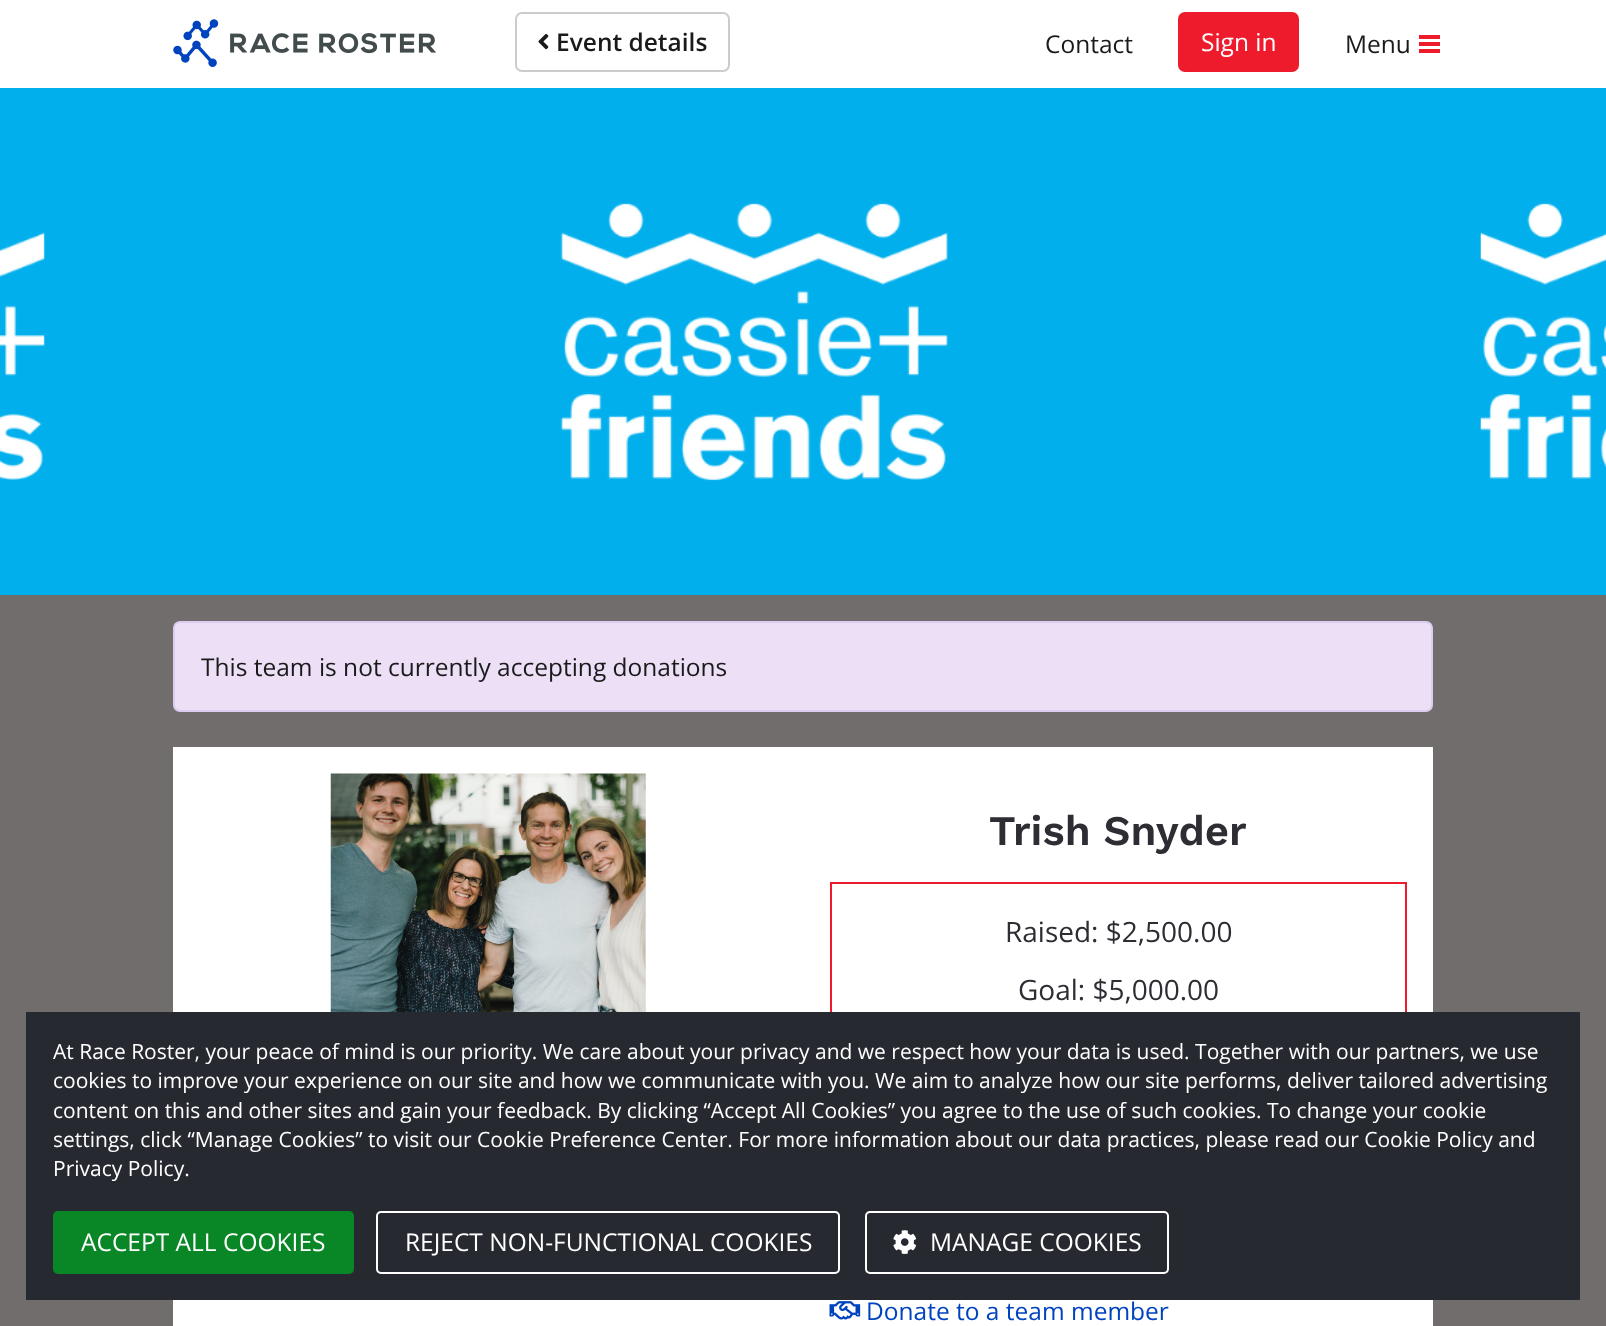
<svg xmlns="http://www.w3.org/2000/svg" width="1606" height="1326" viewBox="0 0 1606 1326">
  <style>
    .t1 { font: 600 24.5px Open Sans; fill: #1a1a1a; }
    .t2 { font: 24.5px Open Sans; fill: #1a1a1a; }
    .t3 { font: 24.5px Open Sans; fill: #fff; }
    .t4 { font: 600 42px Work Sans; fill: #2d2d33; }
    .t5 { font: 28px Open Sans; fill: #2d2d33; }
    .t6 { font: 24.5px Open Sans; fill: #0043bf; }
    .t7 { font: 21px Open Sans; fill: #fff; }
  </style>
  <rect width="100%" height="100%" fill="#726d6d"/>
  <rect x="0" y="0" width="1606" height="88" fill="#fff"/>
  <image x="173" y="19" width="263" height="48" href="images/1.png"/>
  <rect x="516" y="13" width="213" height="58" rx="6" fill="none" stroke="#ccc" stroke-width="2"/>
  <image x="538" y="33" width="11" height="17" href="images/2.png"/>
  <text x="556" y="51" class="t1">Event details</text>
  <text x="1045" y="53" class="t2">Contact</text>
  <rect x="1178" y="12" width="121" height="60" rx="7" fill="#ee1b2d"/>
  <text x="1201" y="51" class="t3">Sign in</text>
  <text x="1345" y="53" class="t2">Menu</text>
  <rect x="1419" y="35" width="21" height="4" fill="#ee1b2d"/>
  <rect x="1419" y="42" width="21" height="4" fill="#ee1b2d"/>
  <rect x="1419" y="49" width="21" height="4" fill="#ee1b2d"/>
  <image x="0" y="88" width="1606" height="507" href="images/3.png"/>
  <rect x="174" y="622" width="1258" height="89" rx="6" fill="#ede0f6" stroke="#dcccf0" stroke-width="2"/>
  <text x="201" y="676" class="t2">This team is not currently accepting donations</text>
  <rect x="173" y="747" width="1260" height="579" fill="#fff"/>
  <image x="330" y="773" width="316" height="239" href="images/4.png"/>
  <text x="989" y="845" class="t4">Trish Snyder</text>
  <rect x="831" y="883" width="575" height="243" fill="none" stroke="#ee1b2d" stroke-width="2"/>
  <text x="1005" y="942" class="t5">Raised: $2,500.00</text>
  <text x="1018" y="1000" class="t5">Goal: $5,000.00</text>
  <image x="829" y="1301" width="32" height="19" href="images/5.png"/>
  <text x="866" y="1320" class="t6">Donate to a team member</text>
  <rect x="26" y="1012" width="1554" height="288" fill="#272930"/>
  <text x="53" y="1059" class="t7">At Race Roster, your peace of mind is our priority. We care about your privacy and we respect how your data is used. Together with our partners, we use</text>
  <text x="53" y="1088" class="t7">cookies to improve your experience on our site and how we communicate with you. We aim to analyze how our site performs, deliver tailored advertising</text>
  <text x="53" y="1118" class="t7">content on this and other sites and gain your feedback. By clicking “Accept All Cookies” you agree to the use of such cookies. To change your cookie</text>
  <text x="53" y="1147" class="t7">settings, click “Manage Cookies” to visit our Cookie Preference Center. For more information about our data practices, please read our Cookie Policy and</text>
  <text x="53" y="1176" class="t7">Privacy Policy.</text>
  <rect x="53" y="1211" width="301" height="63" rx="5" fill="#098726"/>
  <text x="81" y="1251" class="t3">ACCEPT ALL COOKIES</text>
  <rect x="377" y="1212" width="462" height="61" rx="4" fill="none" stroke="#fff" stroke-width="2"/>
  <text x="405" y="1251" class="t3">REJECT NON-FUNCTIONAL COOKIES</text>
  <rect x="866" y="1212" width="302" height="61" rx="4" fill="none" stroke="#fff" stroke-width="2"/>
  <image x="893" y="1230" width="24" height="24" href="images/6.png"/>
  <text x="930" y="1251" class="t3">MANAGE COOKIES</text>
</svg>
